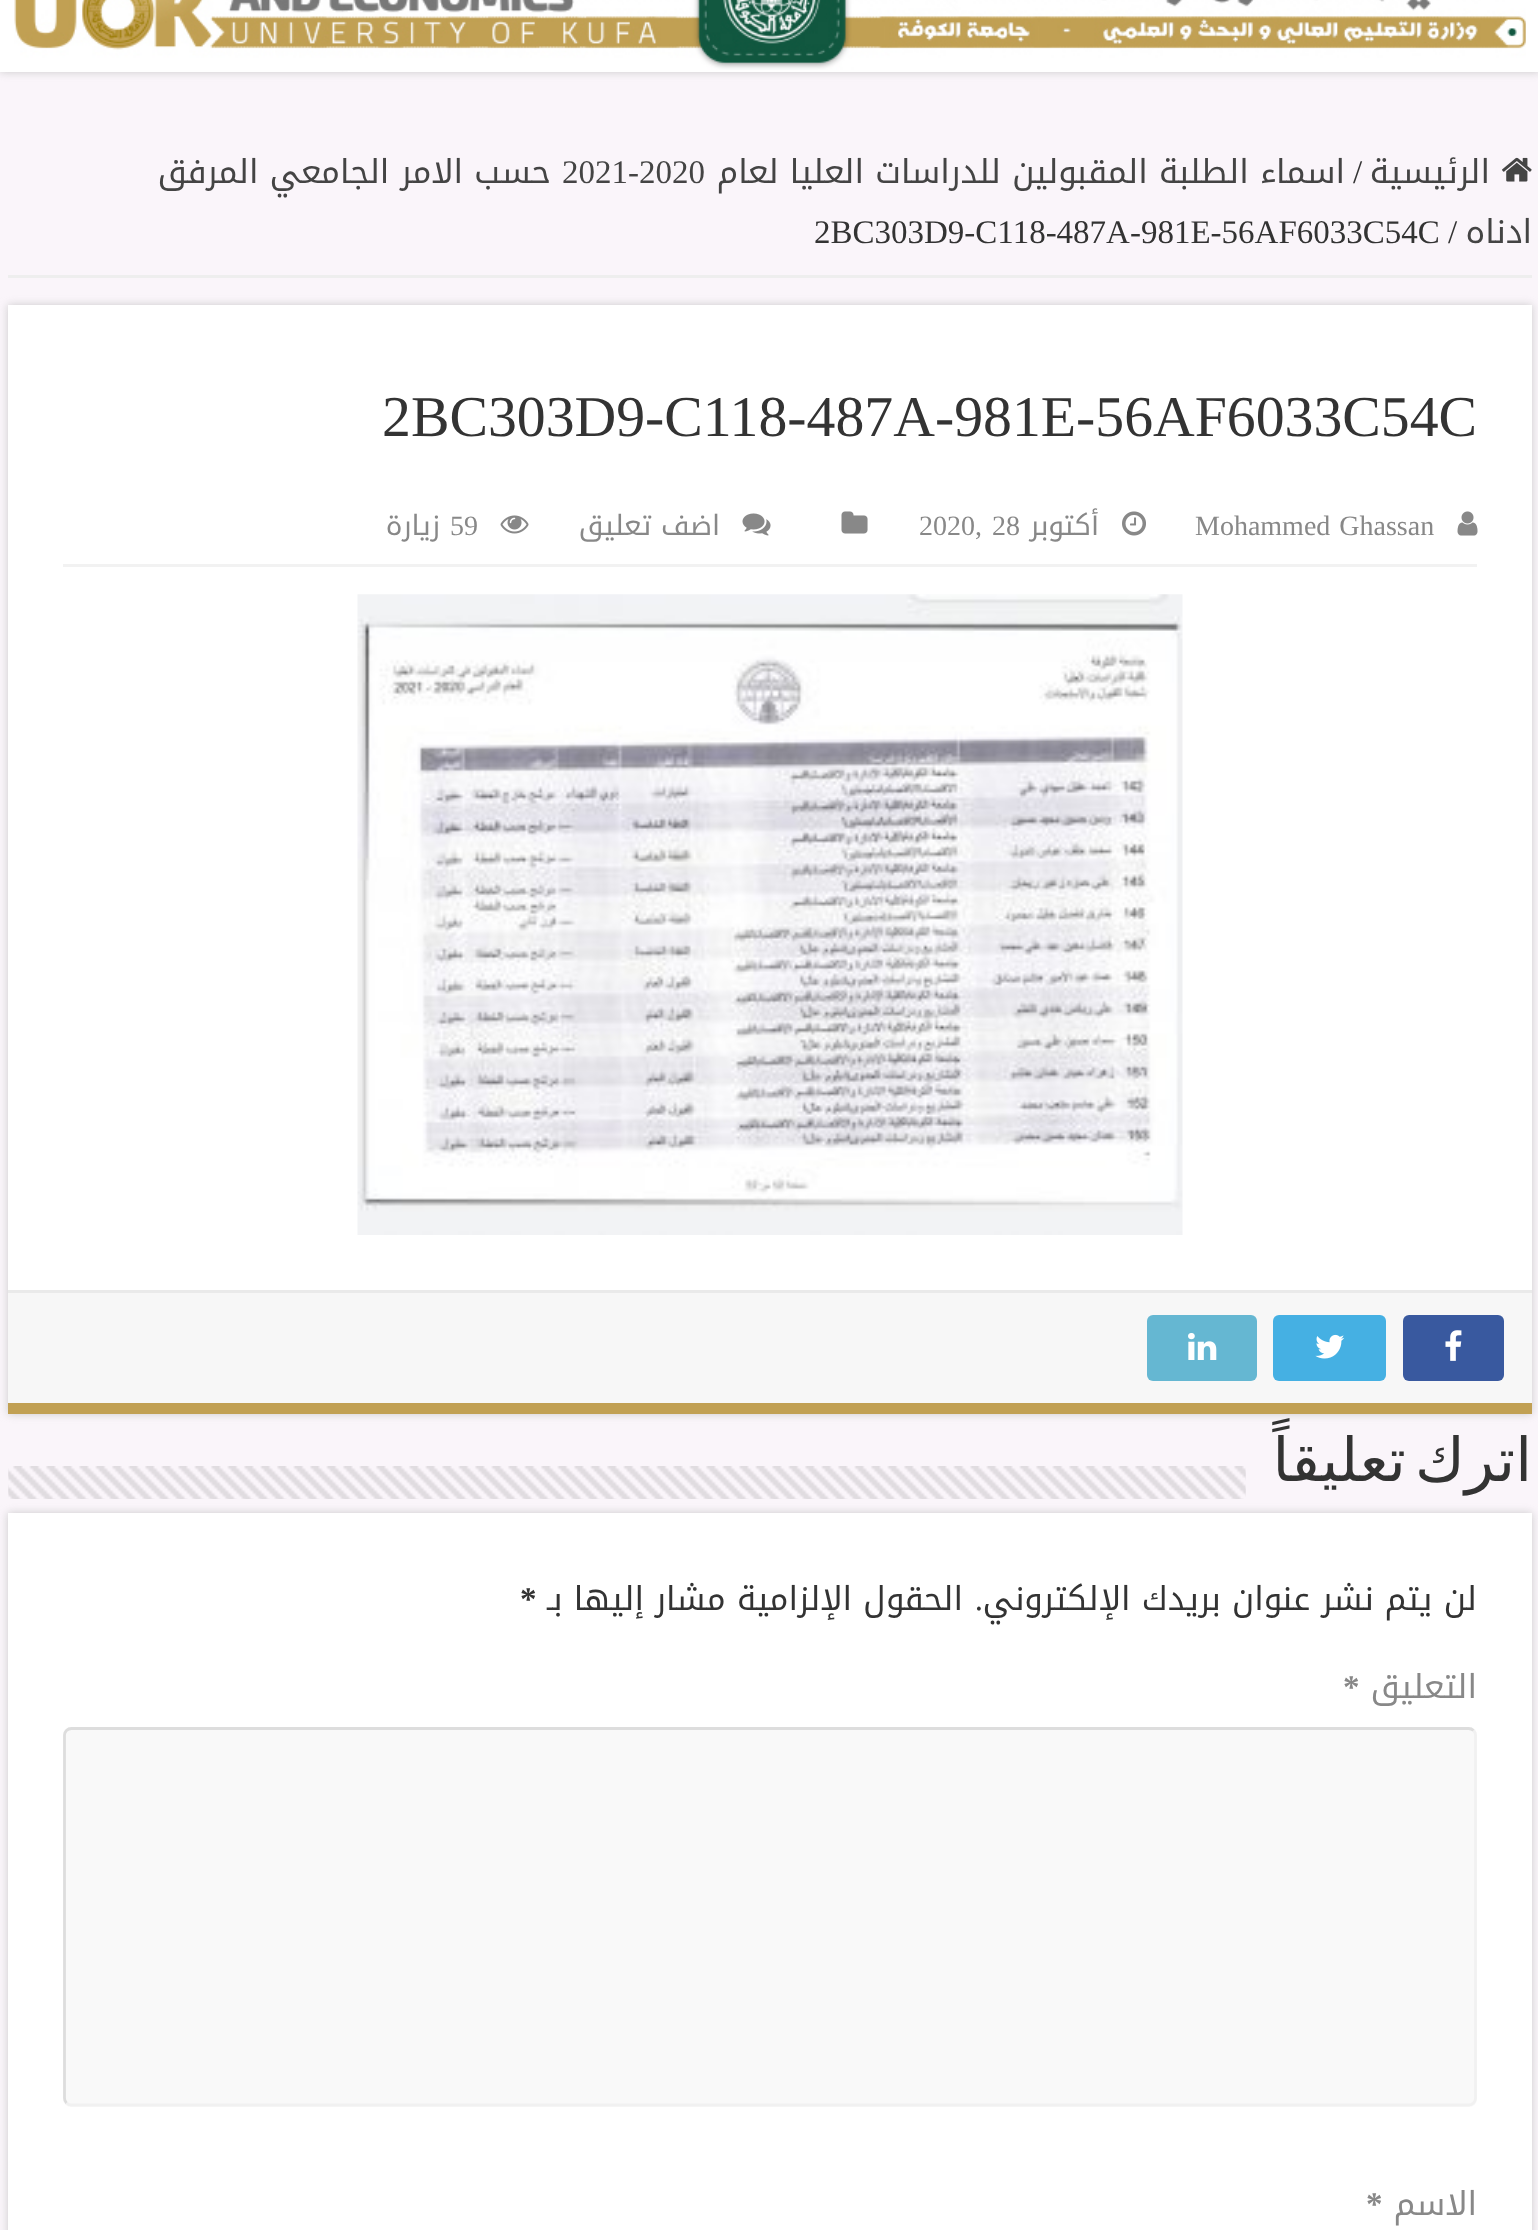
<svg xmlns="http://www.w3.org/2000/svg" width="1538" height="2230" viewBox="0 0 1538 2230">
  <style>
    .t1 { font: 33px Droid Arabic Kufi; direction: rtl; fill: #444; }
    .t2 { font: 33px Liberation Serif; fill: #333; }
    .t3 { font: 33px Liberation Serif; fill: #444; }
    .t4 { font: 57.75px Liberation Serif; fill: #333; }
    .t5 { font: 28px Liberation Serif; fill: #888; }
    .t6 { font: 28px Droid Arabic Kufi; direction: rtl; fill: #888; }
    .t7 { font: 60.5px DejaVu Sans; direction: rtl; fill: #333; }
    .t8 { font: 33px Droid Arabic Kufi; direction: rtl; fill: #333; }
    .t9 { font: bold 33px Liberation Serif; fill: #333; }
    .t10 { font: 33px Liberation Serif; direction: rtl; fill: #333; }
    .t11 { font: 33px Droid Arabic Kufi; direction: rtl; fill: #888; }
    .t12 { font: bold 33px Liberation Serif; fill: #888; }
  </style>
  <rect width="100%" height="100%" fill="#faf5fa"/>
  <rect x="0" y="-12" width="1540" height="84" fill="#cacaca" filter="blur(4px)"/>
  <rect x="0" y="0" width="1538" height="72" fill="#fff"/>
  <image x="14" y="0" width="1512" height="70" href="images/1.png"/>
  <rect x="8" y="275" width="1524" height="3" fill="#eee"/>
  <image x="1502" y="157" width="30" height="25" href="images/2.png"/>
  <text x="1490" y="183" class="t1">الرئيسية</text>
  <text x="1353" y="183" class="t2">/</text>
  <text x="1345" y="183" class="t1">اسماء الطلبة المقبولين للدراسات العليا لعام</text>
  <text x="562" y="183" class="t3">2021-2020</text>
  <text x="551" y="183" class="t1">حسب الامر الجامعي المرفق</text>
  <text x="1532" y="243" class="t1">ادناه</text>
  <text x="1448" y="243" class="t2">/</text>
  <text x="814" y="243" class="t2">2BC303D9-C118-487A-981E-56AF6033C54C</text>
  <rect x="8" y="305" width="1524" height="1109" fill="#cacaca" filter="blur(4px)"/>
  <rect x="8" y="305" width="1524" height="985" fill="#fff"/>
  <rect x="8" y="1403" width="1524" height="11" fill="#c1a053"/>
  <text x="382" y="436" class="t4">2BC303D9-C118-487A-981E-56AF6033C54C</text>
  <rect x="63" y="564" width="1414" height="3" fill="#f2f2f2"/>
  <image x="1457" y="511" width="21" height="25" href="images/3.png"/>
  <text x="1195" y="535" word-spacing="2" class="t5">Mohammed Ghassan</text>
  <image x="1122" y="511" width="24" height="25" href="images/4.png"/>
  <text x="1099" y="535" class="t6">أكتوبر</text>
  <text x="992" y="535" class="t5">28</text>
  <text x="919" y="535" class="t5">2020,</text>
  <image x="841" y="511" width="27" height="23" href="images/5.png"/>
  <image x="742" y="513" width="29" height="23" href="images/6.png"/>
  <text x="720" y="535" class="t6">اضف تعليق</text>
  <image x="500" y="515" width="29" height="19" href="images/7.png"/>
  <text x="450" y="535" class="t5">59</text>
  <text x="440" y="535" class="t6">زيارة</text>
  <image x="357" y="594" width="826" height="641" href="images/8.png"/>
  <rect x="8" y="1293" width="1524" height="110" fill="#f7f7f7"/>
  <rect x="8" y="1290" width="1524" height="3" fill="#eaeaea"/>
  <rect x="1403" y="1315" width="101" height="66" rx="6" fill="#39599f"/>
  <image x="1445" y="1330" width="17" height="31" href="images/9.png"/>
  <rect x="1273" y="1315" width="113" height="66" rx="6" fill="#45b0e3"/>
  <image x="1315" y="1334" width="30" height="25" href="images/10.png"/>
  <rect x="1147" y="1315" width="110" height="66" rx="6" fill="#65b7d2"/>
  <image x="1188" y="1333" width="29" height="27" href="images/11.png"/>
  <text x="1532" y="1481" word-spacing="-10" class="t7">اترك تعليقاً</text>
  <image x="8" y="1466" width="1238" height="33" href="images/12.png"/>
  <rect x="8" y="1513" width="1524" height="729" fill="#cacaca" filter="blur(4px)"/>
  <rect x="8" y="1513" width="1524" height="717" fill="#fff"/>
  <text x="1477" y="1610" class="t8">لن يتم نشر عنوان بريدك الإلكتروني</text>
  <text x="963" y="1610" class="t8">الحقول الإلزامية مشار إليها بـ</text>
  <text x="520" y="1610" class="t9">*</text>
  <text x="983" y="1610" class="t10">.</text>
  <text x="1477" y="1698" class="t11">التعليق</text>
  <text x="1343" y="1698" class="t12">*</text>
  <rect x="63" y="1727" width="1414" height="380" rx="8" fill="#f9f9f9"/>
  <path d="M1473.5 1730.5C1474.5 1731.5 1475.5 1733.5 1475.5 1735V2098C1475.5 2100 1474.5 2102 1473.5 2103C1472 2104.5 1470.5 2105 1468.5 2105H71.5C69.5 2105 68 2104.5 66.5 2103" fill="none" stroke="#f1f1f1" stroke-width="2.8"/>
  <path d="M66.5 2103C65.5 2102 64.5 2100 64.5 2098V1735C64.5 1733.5 65.5 1731.5 66.5 1730.5C68 1729 69.5 1728.5 71.5 1728.5H1468.5C1470.5 1728.5 1472 1729 1473.5 1730.5" fill="none" stroke="#ddd" stroke-width="2.8"/>
  <text x="1477" y="2215" class="t11">الاسم</text>
  <text x="1366" y="2215" class="t12">*</text>
</svg>
